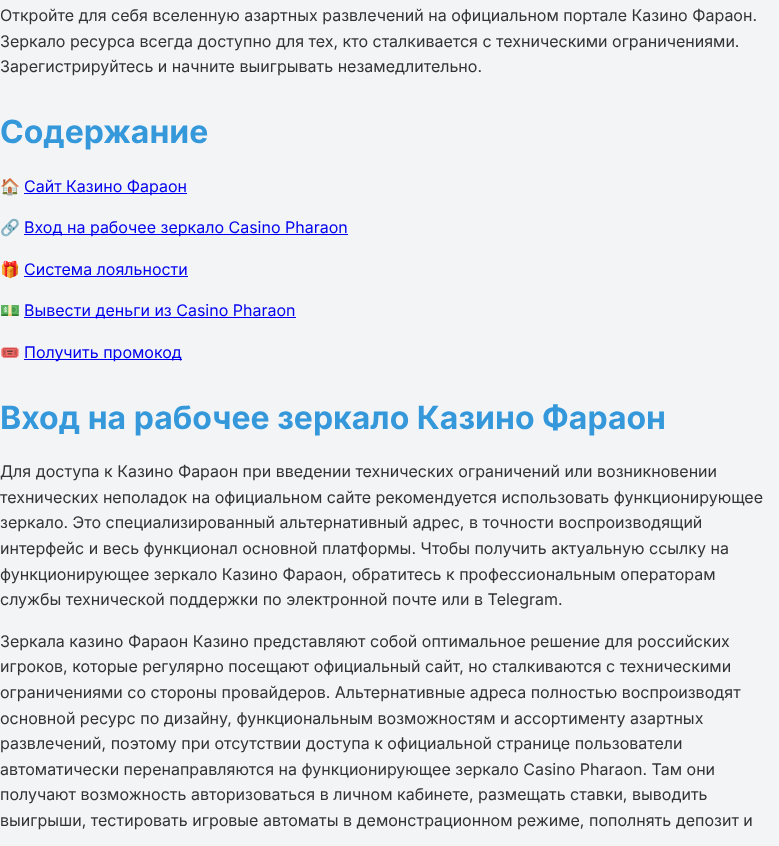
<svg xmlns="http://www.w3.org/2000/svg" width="779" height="846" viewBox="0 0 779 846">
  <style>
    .t1 { font: 16px Inter; fill: #333; }
    .t2 { font: bold 32px Inter; fill: #3498db; }
    .t3 { font: 16px Noto Color Emoji; fill: #333; }
    .t4 { font: 16px Inter; fill: #00e; }
  </style>
  <rect width="100%" height="100%" fill="#f3f4f6"/>
  <text x="0" y="21" class="t1">Откройте для себя вселенную азартных развлечений на официальном портале Казино Фараон.</text>
  <text x="0" y="47" class="t1">Зеркало ресурса всегда доступно для тех, кто сталкивается с техническими ограничениями.</text>
  <text x="0" y="72" class="t1">Зарегистрируйтесь и начните выигрывать незамедлительно.</text>
  <text x="0" y="143" class="t2">Содержание</text>
  <text x="0" y="192" class="t3">🏠</text>
  <rect x="24" y="193" width="163" height="1" fill="#00e"/>
  <text x="24" y="192" class="t4">Сайт Казино Фараон</text>
  <text x="0" y="233" class="t3">🔗</text>
  <rect x="24" y="234" width="324" height="1" fill="#00e"/>
  <text x="24" y="233" class="t4">Вход на рабочее зеркало Casino Pharaon</text>
  <text x="0" y="275" class="t3">🎁</text>
  <text x="24" y="275" class="t4">Система лояльности</text>
  <rect x="24" y="276" width="164" height="1" fill="#00e"/>
  <text x="0" y="316" class="t3">💵</text>
  <rect x="24" y="317" width="272" height="1" fill="#00e"/>
  <text x="24" y="316" class="t4">Вывести деньги из Casino Pharaon</text>
  <text x="0" y="358" class="t3">🎟️</text>
  <rect x="24" y="359" width="158" height="1" fill="#00e"/>
  <text x="24" y="358" class="t4">Получить промокод</text>
  <text x="0" y="429" class="t2">Вход на рабочее зеркало Казино Фараон</text>
  <text x="0" y="477" class="t1">Для доступа к Казино Фараон при введении технических ограничений или возникновении</text>
  <text x="0" y="503" class="t1">технических неполадок на официальном сайте рекомендуется использовать функционирующее</text>
  <text x="0" y="528" class="t1">зеркало. Это специализированный альтернативный адрес, в точности воспроизводящий</text>
  <text x="0" y="554" class="t1">интерфейс и весь функционал основной платформы. Чтобы получить актуальную ссылку на</text>
  <text x="0" y="580" class="t1">функционирующее зеркало Казино Фараон, обратитесь к профессиональным операторам</text>
  <text x="0" y="605" class="t1">службы технической поддержки по электронной почте или в Telegram.</text>
  <text x="0" y="647" class="t1">Зеркала казино Фараон Казино представляют собой оптимальное решение для российских</text>
  <text x="0" y="672" class="t1">игроков, которые регулярно посещают официальный сайт, но сталкиваются с техническими</text>
  <text x="0" y="698" class="t1">ограничениями со стороны провайдеров. Альтернативные адреса полностью воспроизводят</text>
  <text x="0" y="724" class="t1">основной ресурс по дизайну, функциональным возможностям и ассортименту азартных</text>
  <text x="0" y="749" class="t1">развлечений, поэтому при отсутствии доступа к официальной странице пользователи</text>
  <text x="0" y="775" class="t1">автоматически перенаправляются на функционирующее зеркало Casino Pharaon. Там они</text>
  <text x="0" y="800" class="t1">получают возможность авторизоваться в личном кабинете, размещать ставки, выводить</text>
  <text x="0" y="826" class="t1">выигрыши, тестировать игровые автоматы в демонстрационном режиме, пополнять депозит и</text>
</svg>
